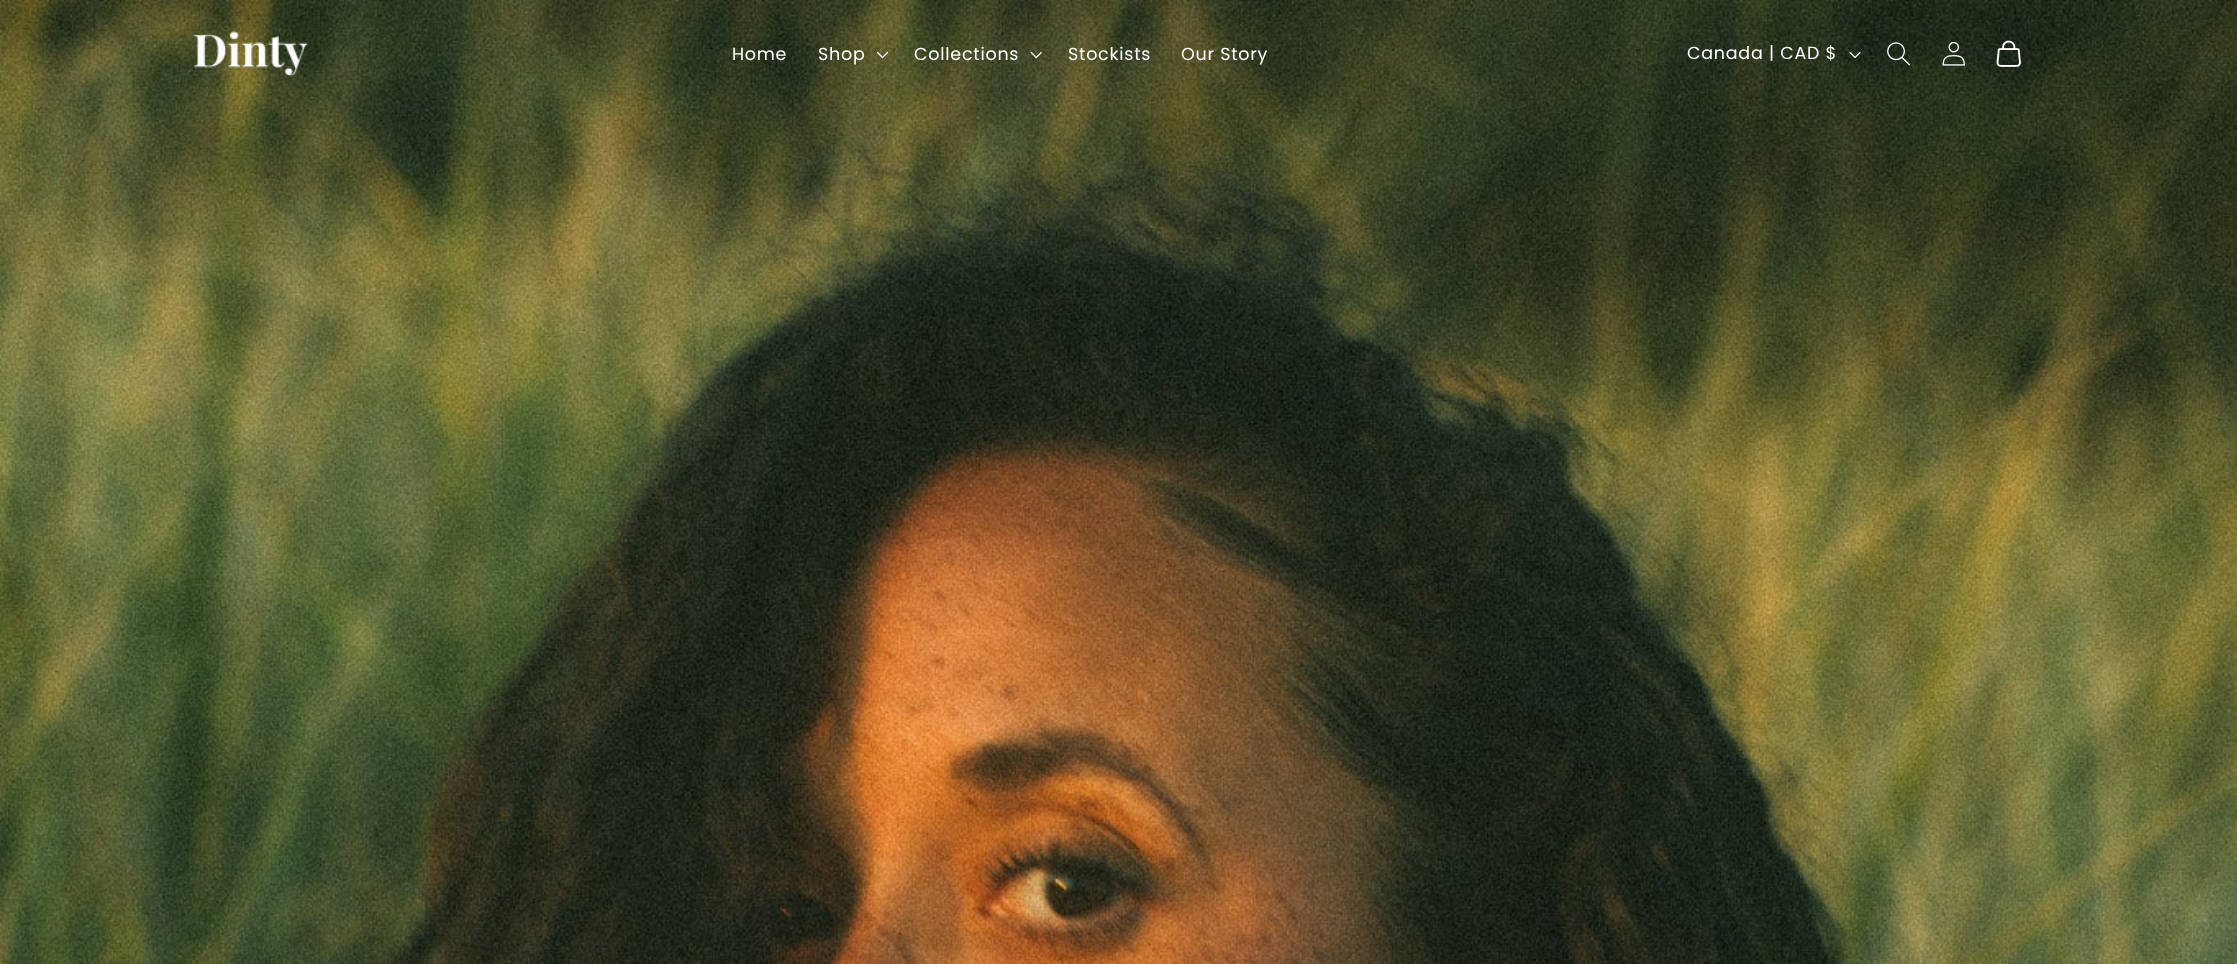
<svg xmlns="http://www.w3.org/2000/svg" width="2237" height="964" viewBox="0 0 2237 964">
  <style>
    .t1 { font: 17.5px Poppins; letter-spacing: 0.75px; fill: #fff; }
  </style>
  <rect width="100%" height="100%" fill="#fff"/>
  <image x="0" y="0" width="2237" height="964" href="images/1.png"/>
  <image x="193" y="31" width="115" height="46" href="images/2.png"/>
  <text x="732" y="60" class="t1">Home</text>
  <text x="818" y="60" class="t1">Shop</text>
  <image x="876" y="51" width="13" height="8" href="images/3.png"/>
  <text x="914" y="60" class="t1">Collections</text>
  <image x="1030" y="51" width="12" height="8" href="images/4.png"/>
  <text x="1068" y="60" class="t1">Stockists</text>
  <text x="1181" y="60" class="t1">Our Story</text>
  <text x="1687" y="59" class="t1">Canada | CAD $</text>
  <image x="1849" y="52" width="12" height="6" href="images/5.png"/>
  <image x="1887" y="42" width="23" height="24" href="images/6.png"/>
  <image x="1942" y="41" width="23" height="25" href="images/7.png"/>
  <image x="1996" y="40" width="25" height="27" href="images/8.png"/>
</svg>
